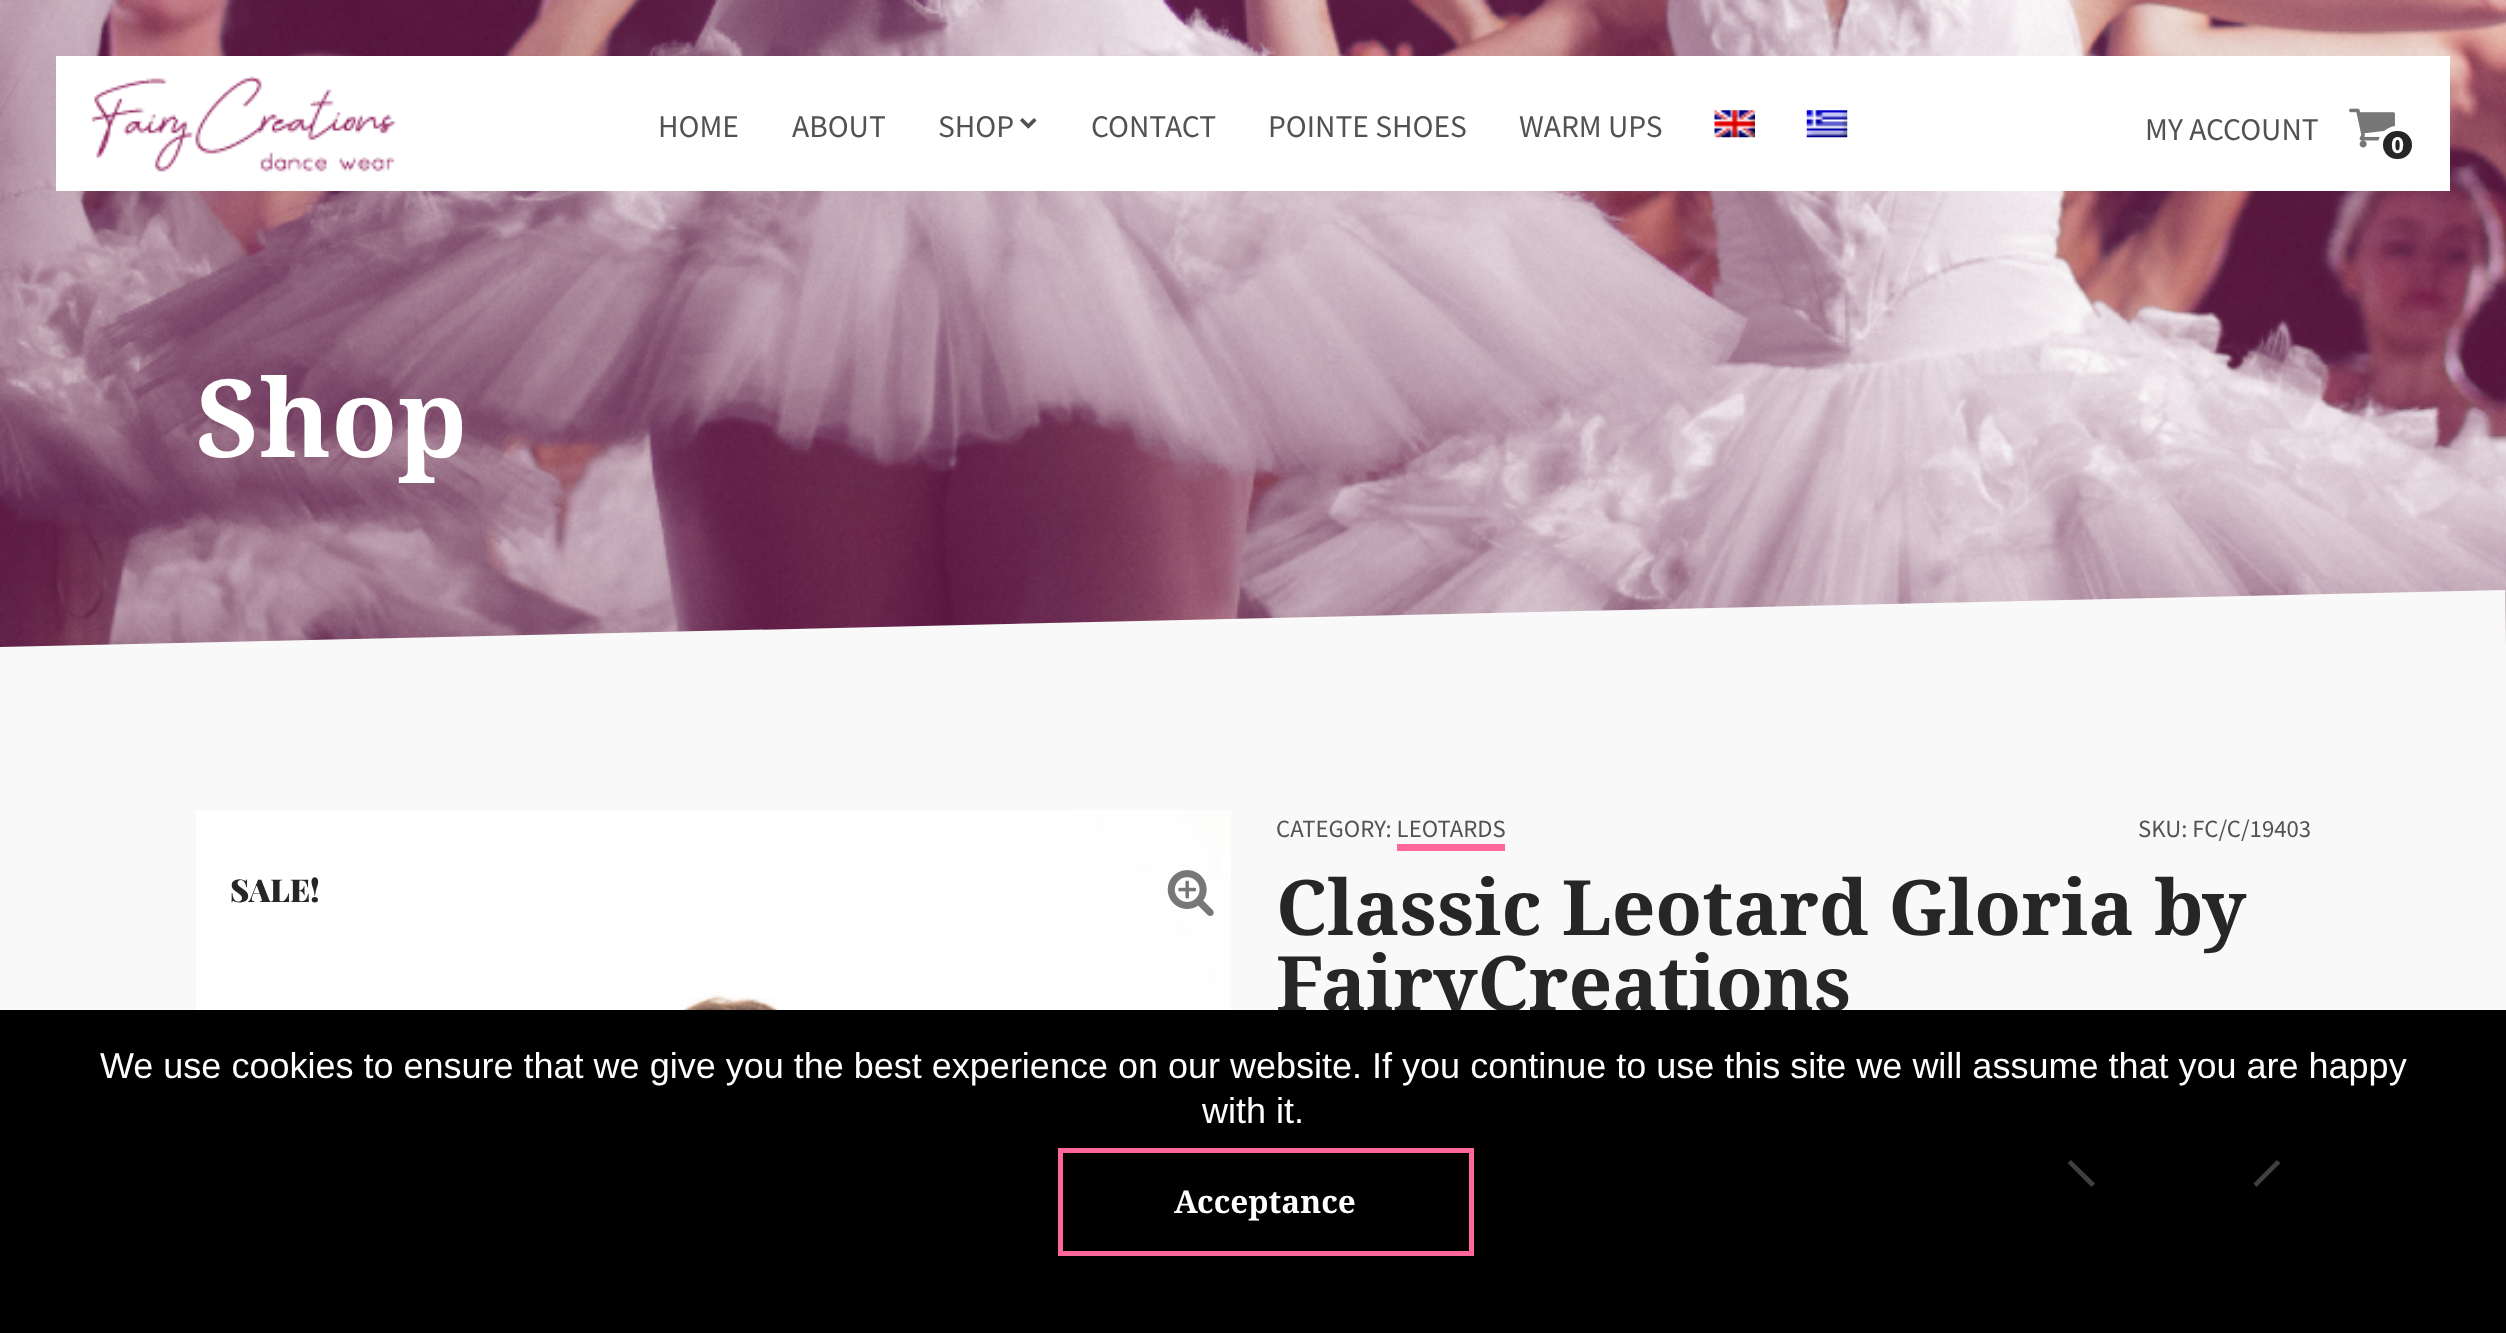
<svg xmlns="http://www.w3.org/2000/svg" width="2506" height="1333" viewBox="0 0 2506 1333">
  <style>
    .t1 { font: 31.5px Source Sans Pro; fill: #525252; }
    .t2 { font: bold 24.75px Source Sans Pro; letter-spacing: -1px; fill: #fff; }
    .t3 { font: bold 108px Noto Serif; fill: #fff; }
    .t4 { font: 900 31.5px Playfair Display; fill: #262626; }
    .t5 { font: 24.75px Source Sans Pro; fill: #525252; }
    .t6 { font: bold 76.5px Noto Serif; fill: #262626; }
    .t7 { font: 36px Liberation Sans; fill: #fff; }
    .t8 { font: bold 31.5px Noto Serif; fill: #fff; }
  </style>
  <defs>
    <clipPath id="clip1"><rect x="0" y="0" width="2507" height="675"/></clipPath>
  </defs>
  <rect width="100%" height="100%" fill="#f9f9f9"/>
  <image x="0" y="0" width="2506" height="647" href="images/6.png"/>
  <rect x="56" y="56" width="2394" height="135" fill="#fff"/>
  <image x="91" y="76" width="306" height="96" href="images/1.png"/>
  <text x="658" y="137" class="t1">HOME</text>
  <text x="792" y="137" class="t1">ABOUT</text>
  <text x="938" y="137" class="t1">SHOP</text>
  <image x="1020" y="118" width="17" height="11" href="images/2.png"/>
  <text x="1091" y="137" class="t1">CONTACT</text>
  <text x="1268" y="137" class="t1">POINTE SHOES</text>
  <text x="1519" y="137" class="t1">WARM UPS</text>
  <image x="1714" y="110" width="41" height="28" href="images/3.png"/>
  <image x="1806" y="110" width="42" height="28" href="images/4.png"/>
  <text x="2145" y="140" class="t1">MY ACCOUNT</text>
  <image x="2349" y="108" width="46" height="40" href="images/5.png"/>
  <rect x="2380.5" y="128.5" width="34" height="33" rx="16.5" fill="#262626" stroke="#fff" stroke-width="5"/>
  <text x="2391" y="153" class="t2">0</text>
  <text x="196" y="457" class="t3">Shop</text>
  <g clip-path="url(#clip1)">
    <path d="M-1 647L2505 590L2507 703L2 760Z" fill="#f9f9f9"/>
  </g>
  <image x="196" y="810" width="1035" height="200" href="images/7.png"/>
  <rect x="1222" y="855" width="9" height="21" fill="#fff"/>
  <image x="1167" y="870" width="47" height="46" href="images/8.png"/>
  <text x="230" y="902" class="t4">SALE!</text>
  <text x="1276" y="837" class="t5">CATEGORY: LEOTARDS</text>
  <rect x="1397" y="844" width="108" height="7" fill="#ff669b"/>
  <text x="2138" y="837" class="t5">SKU: FC/C/19403</text>
  <text x="1276" y="935" class="t6">Classic Leotard Gloria by</text>
  <text x="1276" y="1011" class="t6">FairyCreations</text>
  <rect x="0" y="1010" width="2506" height="323" fill="#000"/>
  <text x="100" y="1078" class="t7">We use cookies to ensure that we give you the best experience on our website. If you continue to use this site we will assume that you are happy</text>
  <text x="1202" y="1123" class="t7">with it.</text>
  <path d="M2067.5 1163L2071 1160L2095 1183.5L2091.5 1187Z" fill="#404040"/>
  <path d="M2277 1160L2280.5 1163L2256.5 1187L2253.5 1183.5Z" fill="#404040"/>
  <rect x="1060.5" y="1150.5" width="411" height="103" fill="none" stroke="#ff669b" stroke-width="5"/>
  <text x="1174" y="1213" class="t8">Acceptance</text>
</svg>
